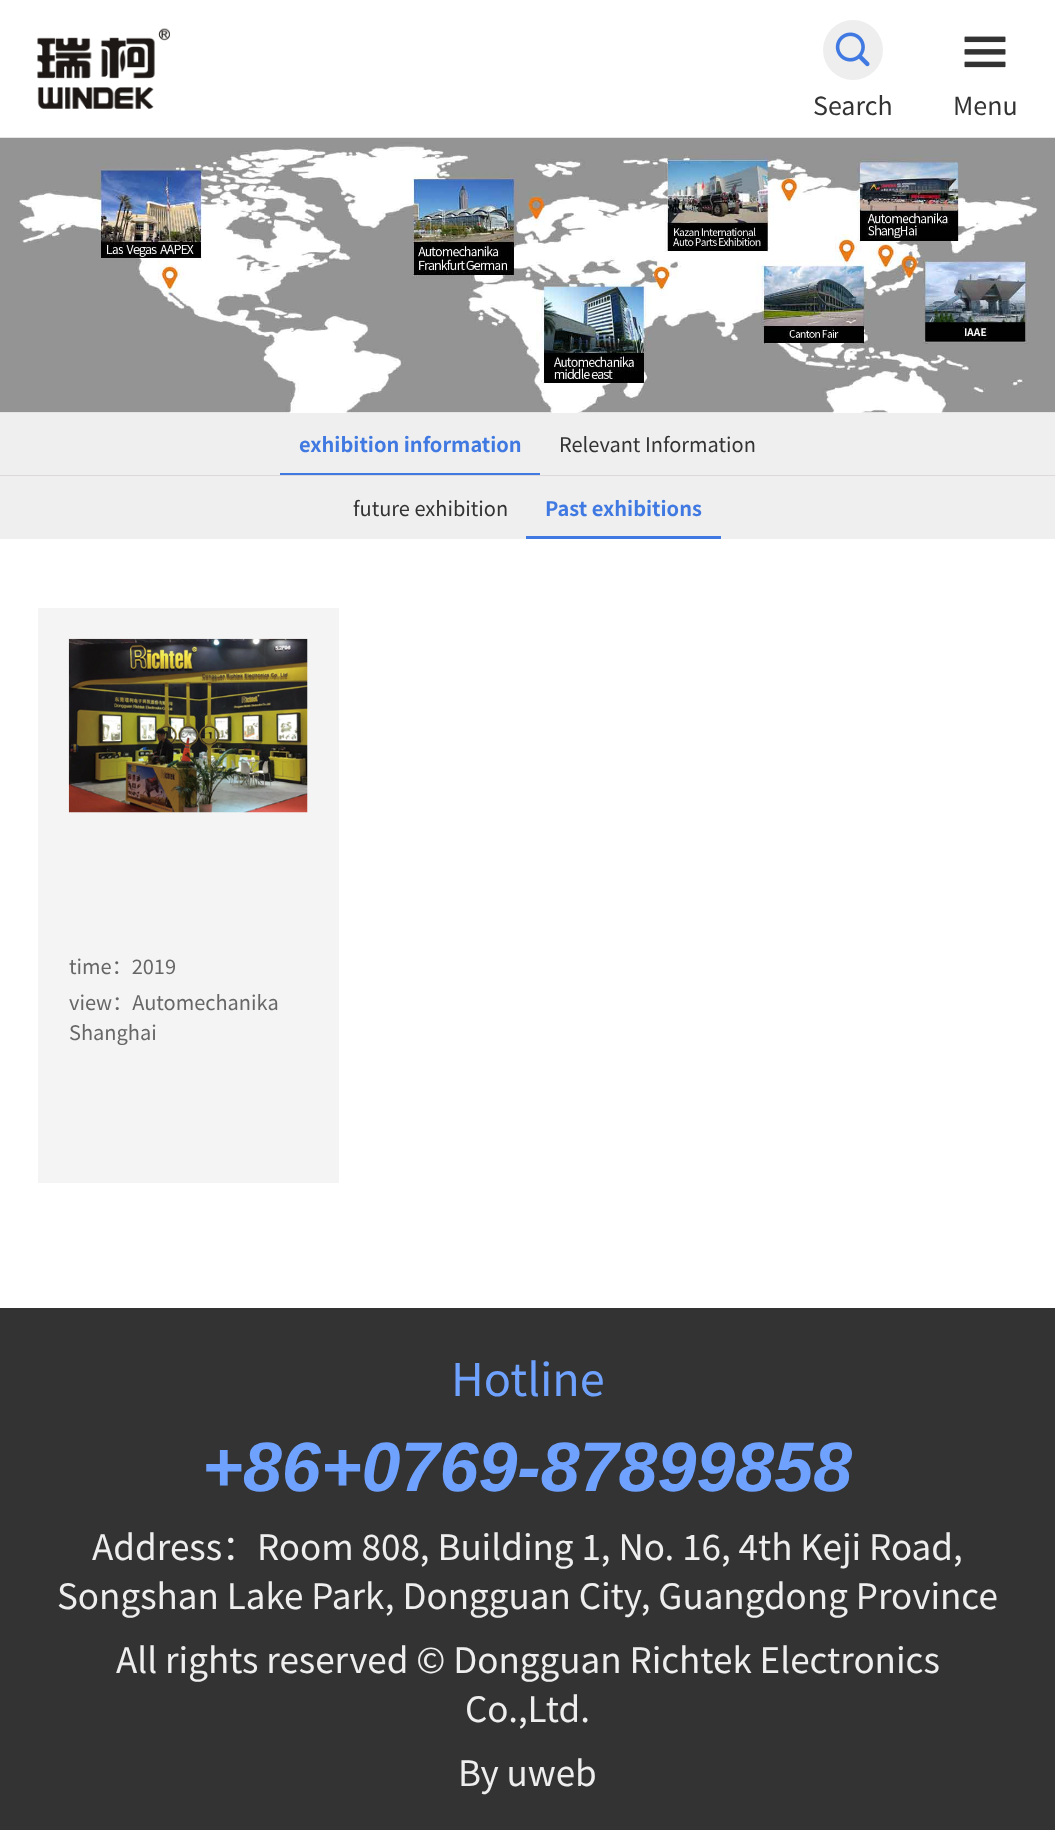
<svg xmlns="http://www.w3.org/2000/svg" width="1055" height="1836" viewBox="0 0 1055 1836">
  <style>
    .t1 { font: 25px Noto Sans CJK SC; fill: #333; }
    .t2 { font: bold 20px Noto Sans CJK SC; fill: #4079e1; }
    .t3 { font: 20px Noto Sans CJK SC; fill: #333; }
    .t4 { font: 20px Noto Sans CJK SC; fill: #676767; }
    .t5 { font: 45px Noto Sans CJK SC; fill: #6fa2ff; }
    .t6 { font: italic bold 70px Liberation Sans; fill: #6fa2ff; }
    .t7 { font: 35px Noto Sans CJK SC; fill: #eee; }
  </style>
  <rect width="100%" height="100%" fill="#fff"/>
  <image x="37" y="28" width="133" height="81" href="images/1.png"/>
  <circle cx="853" cy="50" r="30" fill="#eee"/>
  <image x="835" y="32" width="35" height="35" href="images/2.png"/>
  <text x="813" y="115" class="t1">Search</text>
  <image x="964" y="36" width="42" height="32" href="images/3.png"/>
  <text x="953" y="115" class="t1">Menu</text>
  <image x="0" y="137" width="1055" height="276" href="images/4.png"/>
  <rect x="0" y="413" width="1055" height="62" fill="#efefef"/>
  <text x="299" y="452" class="t2">exhibition information</text>
  <rect x="280" y="473" width="260" height="2" fill="#4079e1"/>
  <text x="559" y="452" class="t3">Relevant Information</text>
  <rect x="0" y="476" width="1055" height="63" fill="#efefef"/>
  <rect x="0" y="475" width="1055" height="1" fill="#ded9d9"/>
  <text x="353" y="516" class="t3">future exhibition</text>
  <text x="545" y="516" class="t2">Past exhibitions</text>
  <rect x="526" y="536" width="195" height="3" fill="#4079e1"/>
  <rect x="38" y="608" width="301" height="575" fill="#f4f4f4"/>
  <image x="68" y="638" width="240" height="175" href="images/5.png"/>
  <text x="69" y="974" class="t4">time：2019</text>
  <text x="69" y="1010" class="t4">view：Automechanika</text>
  <text x="69" y="1040" class="t4">Shanghai</text>
  <rect x="0" y="1308" width="1055" height="522" fill="#333"/>
  <text x="451" y="1396" class="t5">Hotline</text>
  <text x="202" y="1491" class="t6">+86+0769-87899858</text>
  <text x="92" y="1560" class="t7">Address：Room 808, Building 1, No. 16, 4th Keji Road,</text>
  <text x="57" y="1609" class="t7">Songshan Lake Park, Dongguan City, Guangdong Province</text>
  <text x="116" y="1673" class="t7">All rights reserved © Dongguan Richtek Electronics</text>
  <text x="465" y="1722" class="t7">Co.,Ltd.</text>
  <text x="458" y="1786" class="t7">By uweb</text>
</svg>
